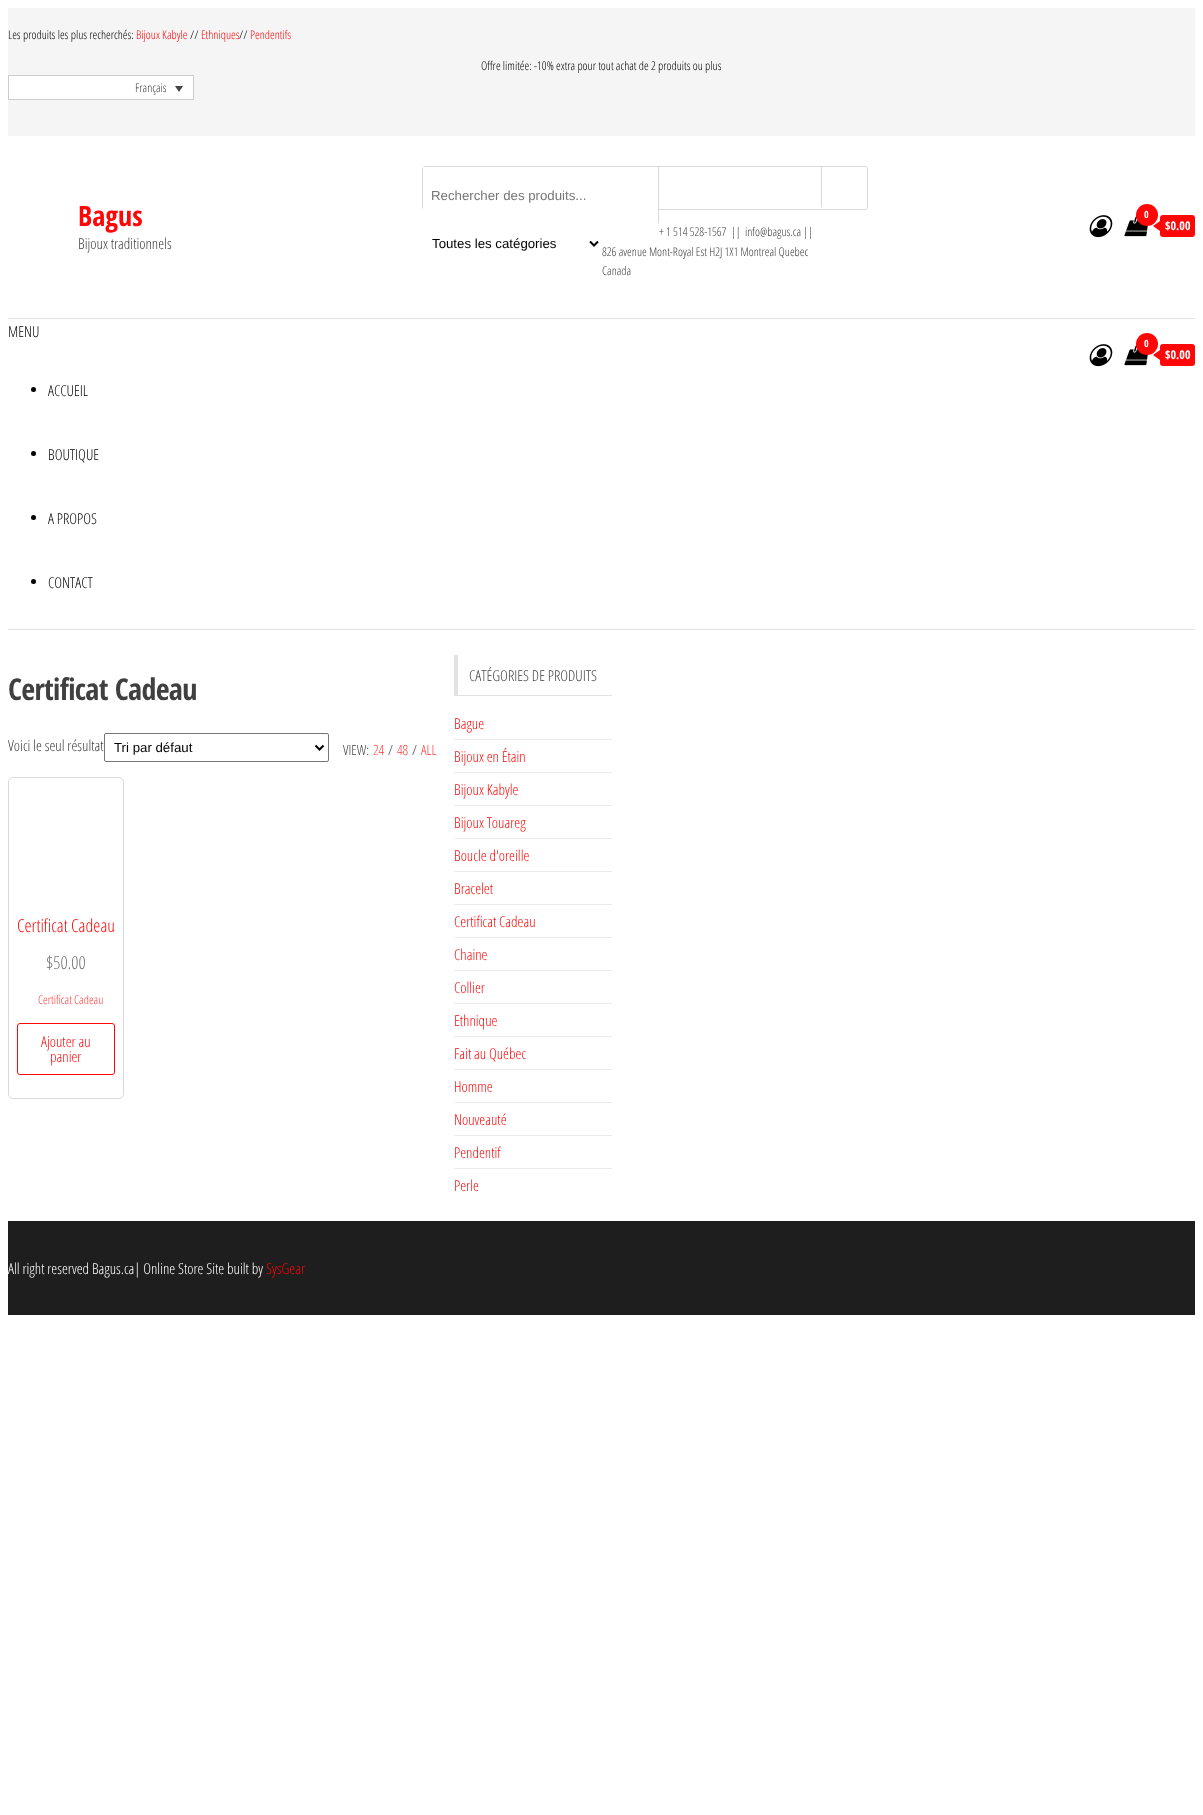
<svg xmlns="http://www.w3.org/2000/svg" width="1203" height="1815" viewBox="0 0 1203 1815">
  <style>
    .t1 { font: 300 12px Open Sans Condensed; fill: #000; }
    .t2 { font: 300 12px Open Sans Condensed; fill: #ff0707; }
    .t3 { font: 300 12px Open Sans Condensed; fill: #404040; }
    .t4 { font: bold 28px Open Sans Condensed; fill: #ff0707; }
    .t5 { font: 300 15px Open Sans Condensed; fill: #404040; }
    .t6 { font: 13.25px Liberation Sans; fill: #757575; }
    .t7 { font: 13.25px Liberation Sans; fill: #000; }
    .t8 { font: bold 10px Open Sans Condensed; fill: #fff; }
    .t9 { font: bold 12px Open Sans Condensed; fill: #fff; }
    .t10 { font: 300 15px Open Sans Condensed; fill: #000; }
    .t11 { font: bold 30px Open Sans Condensed; letter-spacing: -0.6px; fill: #404040; }
    .t12 { font: 300 14px Open Sans Condensed; fill: #404040; }
    .t13 { font: 300 14px Open Sans Condensed; fill: #ff3939; }
    .t14 { font: 300 18px Open Sans Condensed; fill: #ff0707; }
    .t15 { font: 300 18px Open Sans Condensed; fill: #757575; }
    .t16 { font: 300 12px Open Sans Condensed; fill: #ff3939; }
    .t17 { font: 300 15px Open Sans Condensed; fill: #ff0707; }
    .t18 { font: 300 15px Open Sans Condensed; fill: #fff; }
  </style>
  <rect width="100%" height="100%" fill="#fff"/>
  <rect x="8" y="8" width="1187" height="128" fill="#f5f5f5"/>
  <text x="8" y="39" class="t1">Les produits les plus recherchés:</text>
  <text x="136" y="39" class="t2">Bijoux Kabyle</text>
  <text x="190" y="39" class="t1">//</text>
  <text x="201" y="39" class="t2">Ethniques</text>
  <text x="239" y="39" class="t1">//</text>
  <text x="250" y="39" class="t2">Pendentifs</text>
  <text x="481" y="70" class="t1">Offre limitée: -10% extra pour tout achat de 2 produits ou plus</text>
  <rect x="8.5" y="75.5" width="185" height="24" fill="#fff" stroke="#cdcdcd"/>
  <text x="135" y="92" class="t3">Français</text>
  <path d="M175 86H183L179 92Z" fill="#444"/>
  <text x="78" y="226" class="t4">Bagus</text>
  <text x="78" y="249" class="t5">Bijoux traditionnels</text>
  <rect x="422.5" y="166.5" width="445" height="43" rx="2.5" fill="none" stroke="#d9d9d9"/>
  <rect x="423" y="167" width="235" height="43" fill="#fff"/>
  <rect x="658" y="167" width="1" height="56" fill="#d9d9d9"/>
  <text x="431" y="200" class="t6">Rechercher des produits...</text>
  <rect x="821" y="167" width="1" height="40" fill="#d9d9d9"/>
  <path d="M590 241.5L594 245.5L598 241.5" fill="none" stroke="#000" stroke-width="2"/>
  <text x="432" y="248" class="t7">Toutes les catégories</text>
  <text x="659" y="236" class="t3" xml:space="preserve">+ 1 514 528-1567  ||  info@bagus.ca ||</text>
  <text x="602" y="256" class="t3">826 avenue Mont-Royal Est H2J 1X1 Montreal Quebec</text>
  <text x="602" y="275" class="t3">Canada</text>
  <image x="1089" y="215" width="24" height="23" href="images/1.png"/>
  <image x="1124" y="215" width="24" height="22" href="images/2.png"/>
  <circle cx="1147" cy="215" r="11" fill="#ff0707"/>
  <text x="1144" y="218" class="t8">0</text>
  <rect x="1160" y="215" width="35" height="22" rx="3" fill="#ff0707"/>
  <path d="M1160 221V231L1153 226Z" fill="#ff0707"/>
  <text x="1165" y="230" class="t9">$0.00</text>
  <rect x="8" y="318" width="1187" height="1" fill="#e2e2e2"/>
  <rect x="8" y="629" width="1187" height="1" fill="#e2e2e2"/>
  <text x="8" y="337" class="t10">MENU</text>
  <image x="1089" y="344" width="24" height="23" href="images/1.png"/>
  <image x="1124" y="344" width="24" height="22" href="images/2.png"/>
  <circle cx="1147" cy="344" r="11" fill="#ff0707"/>
  <text x="1144" y="347" class="t8">0</text>
  <rect x="1160" y="344" width="35" height="22" rx="3" fill="#ff0707"/>
  <path d="M1160 350V360L1153 355Z" fill="#ff0707"/>
  <text x="1165" y="359" class="t9">$0.00</text>
  <circle cx="33.5" cy="389.5" r="2.5" fill="#000"/>
  <text x="48" y="396" class="t10">ACCUEIL</text>
  <circle cx="33.5" cy="453.5" r="2.5" fill="#000"/>
  <text x="48" y="460" class="t10">BOUTIQUE</text>
  <circle cx="33.5" cy="517.5" r="2.5" fill="#000"/>
  <text x="48" y="524" class="t10">A PROPOS</text>
  <circle cx="33.5" cy="581.5" r="2.5" fill="#000"/>
  <text x="48" y="588" class="t10">CONTACT</text>
  <text x="8" y="700" class="t11">Certificat Cadeau</text>
  <text x="8" y="751" class="t5">Voici le seul résultat</text>
  <rect x="104.5" y="733.5" width="224" height="28" rx="1.5" fill="none" stroke="#767676"/>
  <path d="M315.5 745.5L319.5 749.5L323.5 745.5" fill="none" stroke="#000" stroke-width="2"/>
  <text x="114" y="752" class="t7">Tri par défaut</text>
  <text x="343" y="755" class="t12">VIEW:</text>
  <text x="373" y="755" class="t13">24</text>
  <text x="388" y="755" class="t12">/</text>
  <text x="397" y="755" class="t13">48</text>
  <text x="412" y="755" class="t12">/</text>
  <text x="421" y="755" class="t13">ALL</text>
  <rect x="8.5" y="777.5" width="115" height="321" rx="4.5" fill="none" stroke="#d9d9d9"/>
  <text x="17" y="932" class="t14">Certificat Cadeau</text>
  <text x="46" y="969" class="t15">$50.00</text>
  <text x="38" y="1004" class="t16">Certificat Cadeau</text>
  <rect x="17.5" y="1023.5" width="97" height="51" rx="2.5" fill="none" stroke="#ff0707"/>
  <text x="41" y="1047" class="t17">Ajouter au</text>
  <text x="50" y="1062" class="t17">panier</text>
  <rect x="454" y="695" width="158" height="1" fill="#e2e2e2"/>
  <rect x="454" y="655" width="4" height="40" fill="#e2e2e2"/>
  <text x="469" y="681" class="t5">CATÉGORIES DE PRODUITS</text>
  <rect x="454" y="739" width="158" height="1" fill="#ebebeb"/>
  <text x="454" y="729" class="t17">Bague</text>
  <rect x="454" y="772" width="158" height="1" fill="#ebebeb"/>
  <text x="454" y="762" class="t17">Bijoux en Étain</text>
  <rect x="454" y="805" width="158" height="1" fill="#ebebeb"/>
  <text x="454" y="795" class="t17">Bijoux Kabyle</text>
  <rect x="454" y="838" width="158" height="1" fill="#ebebeb"/>
  <text x="454" y="828" class="t17">Bijoux Touareg</text>
  <rect x="454" y="871" width="158" height="1" fill="#ebebeb"/>
  <text x="454" y="861" class="t17">Boucle d'oreille</text>
  <rect x="454" y="904" width="158" height="1" fill="#ebebeb"/>
  <text x="454" y="894" class="t17">Bracelet</text>
  <rect x="454" y="937" width="158" height="1" fill="#ebebeb"/>
  <text x="454" y="927" class="t17">Certificat Cadeau</text>
  <rect x="454" y="970" width="158" height="1" fill="#ebebeb"/>
  <text x="454" y="960" class="t17">Chaine</text>
  <rect x="454" y="1003" width="158" height="1" fill="#ebebeb"/>
  <text x="454" y="993" class="t17">Collier</text>
  <rect x="454" y="1036" width="158" height="1" fill="#ebebeb"/>
  <text x="454" y="1026" class="t17">Ethnique</text>
  <rect x="454" y="1069" width="158" height="1" fill="#ebebeb"/>
  <text x="454" y="1059" class="t17">Fait au Québec</text>
  <rect x="454" y="1102" width="158" height="1" fill="#ebebeb"/>
  <text x="454" y="1092" class="t17">Homme</text>
  <rect x="454" y="1135" width="158" height="1" fill="#ebebeb"/>
  <text x="454" y="1125" class="t17">Nouveauté</text>
  <rect x="454" y="1168" width="158" height="1" fill="#ebebeb"/>
  <text x="454" y="1158" class="t17">Pendentif</text>
  <text x="454" y="1191" class="t17">Perle</text>
  <rect x="8" y="1221" width="1187" height="94" fill="#1e1e1e"/>
  <text x="8" y="1274" class="t18">All right reserved Bagus.ca| Online Store Site built by</text>
  <text x="266" y="1274" class="t17">SysGear</text>
</svg>
